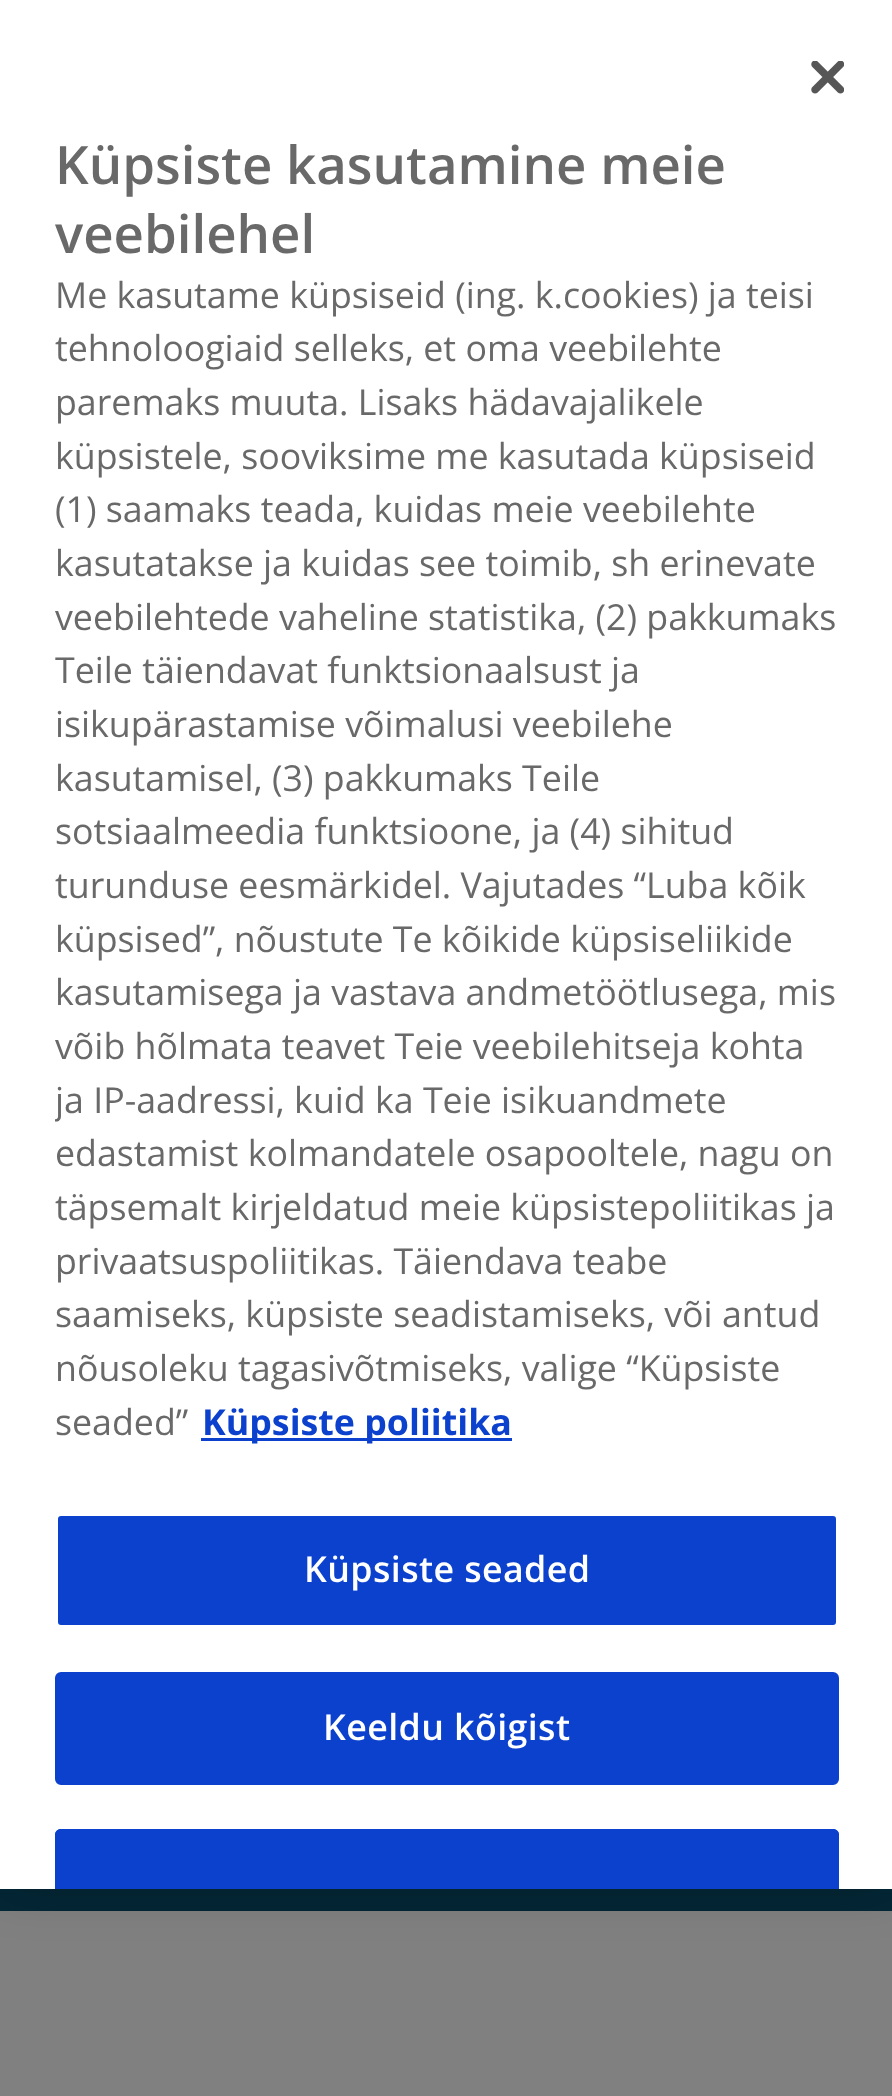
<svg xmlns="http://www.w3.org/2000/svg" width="892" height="2096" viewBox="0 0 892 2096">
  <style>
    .t1 { font: 600 52.75px Open Sans; fill: #696969; }
    .t2 { font: 35.75px Open Sans; fill: #696969; }
    .t3 { font: bold 35.75px Open Sans; fill: #0b41cd; }
    .t4 { font: 600 35.75px Open Sans; letter-spacing: 0.4px; fill: #fff; }
  </style>
  <defs>
    <clipPath id="clip1"><rect x="55" y="132" width="784" height="1353"/></clipPath>
    <clipPath id="clip2"><rect x="0" y="0" width="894" height="1889"/></clipPath>
  </defs>
  <rect width="100%" height="100%" fill="#808080"/>
  <rect x="0" y="1889" width="892" height="22" fill="#042736"/>
  <rect x="0" y="0" width="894" height="1889" fill="#00000033" filter="blur(25px)"/>
  <rect x="0" y="0" width="892" height="1889" fill="#fff"/>
  <image x="811" y="61" width="33" height="33" href="images/1.png"/>
  <text x="55" y="184" class="t1">Küpsiste kasutamine meie</text>
  <text x="55" y="253" class="t1">veebilehel</text>
  <text x="55" y="308" class="t2">Me kasutame küpsiseid (ing. k.cookies) ja teisi</text>
  <text x="55" y="361" class="t2">tehnoloogiaid selleks, et oma veebilehte</text>
  <text x="55" y="415" class="t2">paremaks muuta. Lisaks hädavajalikele</text>
  <text x="55" y="469" class="t2">küpsistele, sooviksime me kasutada küpsiseid</text>
  <text x="55" y="522" class="t2">(1) saamaks teada, kuidas meie veebilehte</text>
  <text x="55" y="576" class="t2">kasutatakse ja kuidas see toimib, sh erinevate</text>
  <text x="55" y="630" class="t2">veebilehtede vaheline statistika, (2) pakkumaks</text>
  <text x="55" y="683" class="t2">Teile täiendavat funktsionaalsust ja</text>
  <text x="55" y="737" class="t2">isikupärastamise võimalusi veebilehe</text>
  <text x="55" y="791" class="t2">kasutamisel, (3) pakkumaks Teile</text>
  <text x="55" y="844" class="t2">sotsiaalmeedia funktsioone, ja (4) sihitud</text>
  <text x="55" y="898" class="t2">turunduse eesmärkidel. Vajutades “Luba kõik</text>
  <text x="55" y="952" class="t2">küpsised”, nõustute Te kõikide küpsiseliikide</text>
  <text x="55" y="1005" class="t2">kasutamisega ja vastava andmetöötlusega, mis</text>
  <text x="55" y="1059" class="t2">võib hõlmata teavet Teie veebilehitseja kohta</text>
  <g clip-path="url(#clip1)">
    <text x="55" y="1113" class="t2">ja IP-aadressi, kuid ka Teie isikuandmete</text>
  </g>
  <text x="55" y="1166" class="t2">edastamist kolmandatele osapooltele, nagu on</text>
  <text x="55" y="1220" class="t2">täpsemalt kirjeldatud meie küpsistepoliitikas ja</text>
  <text x="55" y="1274" class="t2">privaatsuspoliitikas. Täiendava teabe</text>
  <text x="55" y="1327" class="t2">saamiseks, küpsiste seadistamiseks, või antud</text>
  <text x="55" y="1381" class="t2">nõusoleku tagasivõtmiseks, valige “Küpsiste</text>
  <text x="55" y="1435" class="t2">seaded”</text>
  <rect x="201" y="1438" width="311" height="3" fill="#0b41cd"/>
  <text x="202" y="1435" class="t3">Küpsiste poliitika</text>
  <rect x="56.5" y="1514.5" width="781" height="112" rx="4.5" fill="#0b41cd" stroke="#fff" stroke-width="3"/>
  <text x="304" y="1582" class="t4">Küpsiste seaded</text>
  <rect x="56.5" y="1673.5" width="781" height="110" rx="4.5" fill="#0b41cd" stroke="#0b41cd" stroke-width="3"/>
  <text x="323" y="1740" class="t4">Keeldu kõigist</text>
  <path d="M61 1829H833C836.5 1829 839 1831.5 839 1835V1889H55V1835C55 1831.5 57.5 1829 61 1829Z" fill="#0b41cd"/>
  <g clip-path="url(#clip2)">
    <rect x="56.5" y="1830.5" width="781" height="112" rx="4.5" fill="none" stroke="#0b41cd" stroke-width="3"/>
  </g>
</svg>
